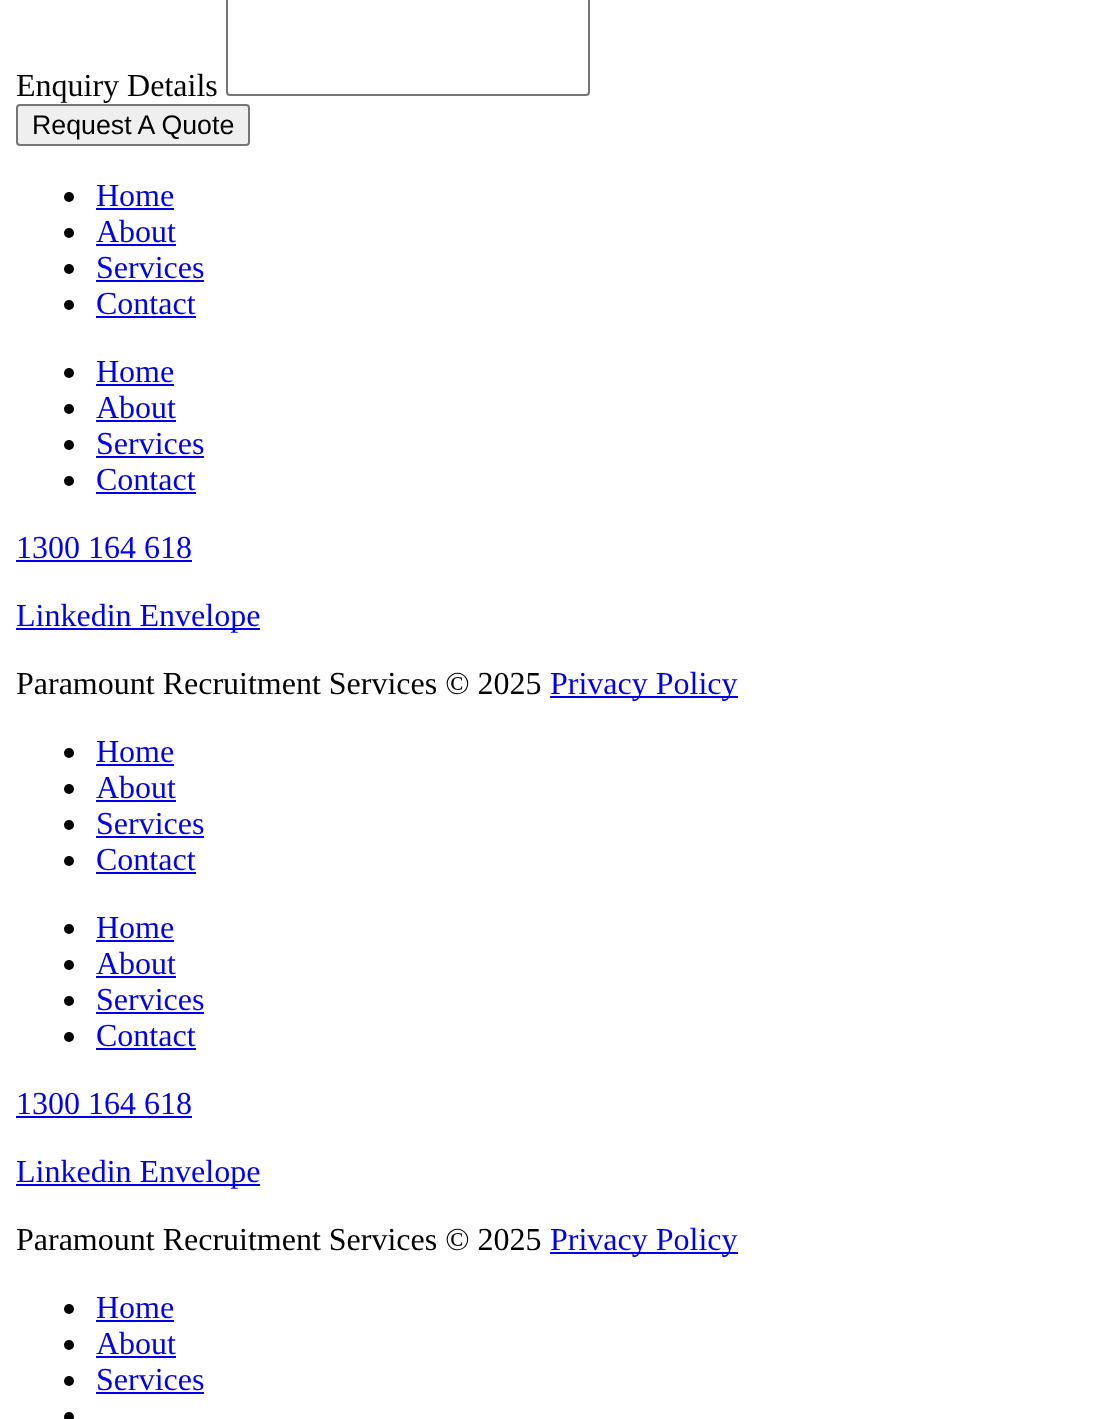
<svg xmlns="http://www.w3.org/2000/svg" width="1103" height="1419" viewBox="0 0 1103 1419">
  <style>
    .t1 { font: 32px Liberation Serif; fill: #000; }
    .t2 { font: 26.75px Liberation Sans; fill: #000; }
    .t3 { font: 32px Liberation Serif; fill: #00e; }
  </style>
  <rect width="100%" height="100%" fill="#fff"/>
  <text x="16" y="96" class="t1">Enquiry Details</text>
  <rect x="227" y="-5" width="362" height="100" rx="3" fill="none" stroke="#767676" stroke-width="2"/>
  <rect x="17" y="105" width="232" height="40" rx="3" fill="#efefef" stroke="#767676" stroke-width="2"/>
  <text x="32" y="134" class="t2">Request A Quote</text>
  <circle cx="69" cy="197" r="5" fill="#000"/>
  <text x="96" y="206" class="t3">Home</text>
  <rect x="96" y="208" width="78" height="2" fill="#00e"/>
  <circle cx="69" cy="233" r="5" fill="#000"/>
  <text x="96" y="242" class="t3">About</text>
  <rect x="96" y="244" width="80" height="2" fill="#00e"/>
  <circle cx="69" cy="269" r="5" fill="#000"/>
  <text x="96" y="278" class="t3">Services</text>
  <rect x="96" y="280" width="108" height="2" fill="#00e"/>
  <circle cx="69" cy="305" r="5" fill="#000"/>
  <text x="96" y="314" class="t3">Contact</text>
  <rect x="96" y="316" width="100" height="2" fill="#00e"/>
  <circle cx="69" cy="373" r="5" fill="#000"/>
  <text x="96" y="382" class="t3">Home</text>
  <rect x="96" y="384" width="78" height="2" fill="#00e"/>
  <circle cx="69" cy="409" r="5" fill="#000"/>
  <text x="96" y="418" class="t3">About</text>
  <rect x="96" y="420" width="80" height="2" fill="#00e"/>
  <circle cx="69" cy="445" r="5" fill="#000"/>
  <text x="96" y="454" class="t3">Services</text>
  <rect x="96" y="456" width="108" height="2" fill="#00e"/>
  <circle cx="69" cy="481" r="5" fill="#000"/>
  <text x="96" y="490" class="t3">Contact</text>
  <rect x="96" y="492" width="100" height="2" fill="#00e"/>
  <text x="16" y="558" class="t3">1300 164 618</text>
  <rect x="16" y="560" width="176" height="2" fill="#00e"/>
  <rect x="16" y="628" width="244" height="2" fill="#00e"/>
  <text x="16" y="626" class="t3">Linkedin Envelope</text>
  <text x="16" y="694" class="t1">Paramount Recruitment Services © 2025</text>
  <rect x="550" y="696" width="188" height="2" fill="#00e"/>
  <text x="550" y="694" class="t3">Privacy Policy</text>
  <circle cx="69" cy="753" r="5" fill="#000"/>
  <text x="96" y="762" class="t3">Home</text>
  <rect x="96" y="764" width="78" height="2" fill="#00e"/>
  <circle cx="69" cy="789" r="5" fill="#000"/>
  <text x="96" y="798" class="t3">About</text>
  <rect x="96" y="800" width="80" height="2" fill="#00e"/>
  <circle cx="69" cy="825" r="5" fill="#000"/>
  <text x="96" y="834" class="t3">Services</text>
  <rect x="96" y="836" width="108" height="2" fill="#00e"/>
  <circle cx="69" cy="861" r="5" fill="#000"/>
  <text x="96" y="870" class="t3">Contact</text>
  <rect x="96" y="872" width="100" height="2" fill="#00e"/>
  <circle cx="69" cy="929" r="5" fill="#000"/>
  <text x="96" y="938" class="t3">Home</text>
  <rect x="96" y="940" width="78" height="2" fill="#00e"/>
  <circle cx="69" cy="965" r="5" fill="#000"/>
  <text x="96" y="974" class="t3">About</text>
  <rect x="96" y="976" width="80" height="2" fill="#00e"/>
  <circle cx="69" cy="1001" r="5" fill="#000"/>
  <text x="96" y="1010" class="t3">Services</text>
  <rect x="96" y="1012" width="108" height="2" fill="#00e"/>
  <circle cx="69" cy="1037" r="5" fill="#000"/>
  <text x="96" y="1046" class="t3">Contact</text>
  <rect x="96" y="1048" width="100" height="2" fill="#00e"/>
  <text x="16" y="1114" class="t3">1300 164 618</text>
  <rect x="16" y="1116" width="176" height="2" fill="#00e"/>
  <rect x="16" y="1184" width="244" height="2" fill="#00e"/>
  <text x="16" y="1182" class="t3">Linkedin Envelope</text>
  <text x="16" y="1250" class="t1">Paramount Recruitment Services © 2025</text>
  <rect x="550" y="1252" width="188" height="2" fill="#00e"/>
  <text x="550" y="1250" class="t3">Privacy Policy</text>
  <circle cx="69" cy="1309" r="5" fill="#000"/>
  <text x="96" y="1318" class="t3">Home</text>
  <rect x="96" y="1320" width="78" height="2" fill="#00e"/>
  <circle cx="69" cy="1345" r="5" fill="#000"/>
  <text x="96" y="1354" class="t3">About</text>
  <rect x="96" y="1356" width="80" height="2" fill="#00e"/>
  <circle cx="69" cy="1381" r="5" fill="#000"/>
  <text x="96" y="1390" class="t3">Services</text>
  <rect x="96" y="1392" width="108" height="2" fill="#00e"/>
  <circle cx="69" cy="1417" r="5" fill="#000"/>
</svg>
